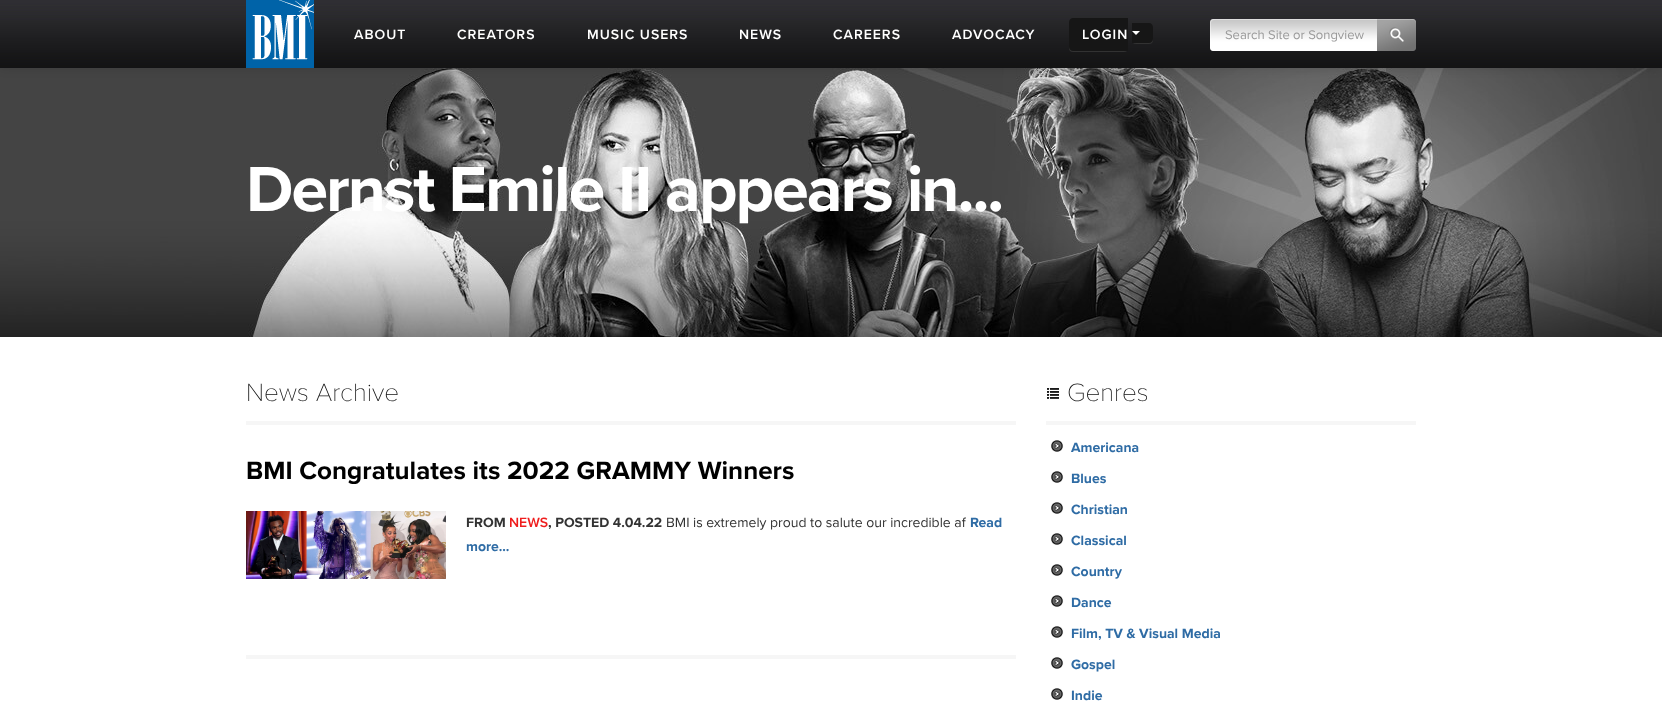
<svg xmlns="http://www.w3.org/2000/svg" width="1662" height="704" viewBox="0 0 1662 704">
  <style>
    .t1 { font: 600 14px Proxima Nova; letter-spacing: 1px; fill: #fff; }
    .t2 { font: 13px Proxima Nova; fill: #999; }
    .t3 { font: bold 66px Proxima Nova; letter-spacing: -2px; fill: #fff; }
    .t4 { font: 100 26px Proxima Nova; fill: #111; }
    .t5 { font: bold 26px Proxima Nova; fill: #000; }
    .t6 { font: bold 14px Proxima Nova; fill: #333; }
    .t7 { font: 600 14px Proxima Nova; fill: #ef1d1d; }
    .t8 { font: 14px Proxima Nova; fill: #333; }
    .t9 { font: bold 14px Proxima Nova; fill: #2f6ca5; }
  </style>
  <rect width="100%" height="100%" fill="#fff"/>
  <image x="0" y="68" width="1662" height="269" href="images/5.png"/>
  <rect x="0" y="1" width="1662" height="68" fill="#0000001a" filter="blur(5px)"/>
  <image x="0" y="0" width="1662" height="68" href="images/1.png"/>
  <image x="246" y="0" width="68" height="68" href="images/2.png"/>
  <text x="354" y="39" class="t1">ABOUT</text>
  <text x="457" y="39" class="t1">CREATORS</text>
  <text x="587" y="39" class="t1">MUSIC USERS</text>
  <text x="739" y="39" class="t1">NEWS</text>
  <text x="833" y="39" class="t1">CAREERS</text>
  <text x="952" y="39" class="t1">ADVOCACY</text>
  <rect x="1069" y="19" width="59" height="33" rx="4" fill="#323232" filter="blur(0.5px)"/>
  <path d="M1073 18H1128V51H1073C1071 51 1069 49 1069 47V22C1069 20 1071 18 1073 18Z" fill="#161616"/>
  <rect x="1132" y="24" width="21" height="20" rx="4" fill="#323232" filter="blur(0.5px)"/>
  <path d="M1132 23H1149C1151 23 1153 25 1153 27V39C1153 41 1151 43 1149 43H1132Z" fill="#161616"/>
  <text x="1082" y="39" class="t1">LOGIN</text>
  <path d="M1132 31H1140L1136 35Z" fill="#fff"/>
  <image x="1210" y="19" width="167" height="32" href="images/3.png"/>
  <text x="1225" y="39" class="t2">Search Site or Songview</text>
  <image x="1377" y="19" width="39" height="32" href="images/4.png"/>
  <text x="246" y="211" class="t3">Dernst Emile II appears in...</text>
  <rect x="246" y="421" width="770" height="4" fill="#f6f6f6"/>
  <text x="246" y="401" class="t4">News Archive</text>
  <rect x="246" y="655" width="770" height="4" fill="#f6f6f6"/>
  <text x="246" y="479" class="t5">BMI Congratulates its 2022 GRAMMY Winners</text>
  <image x="246" y="511" width="200" height="68" href="images/6.png"/>
  <text x="466" y="527" class="t6">FROM</text>
  <text x="509" y="527" class="t7">NEWS</text>
  <text x="548" y="527" class="t6">, POSTED 4.04.22</text>
  <text x="666" y="527" class="t8">BMI is extremely proud to salute our incredible af</text>
  <text x="970" y="527" class="t9">Read</text>
  <text x="466" y="551" class="t9">more...</text>
  <rect x="1046" y="421" width="370" height="4" fill="#f6f6f6"/>
  <image x="1047" y="388" width="12" height="11" href="images/7.png"/>
  <text x="1067" y="401" class="t4">Genres</text>
  <image x="1051" y="440" width="13" height="12" href="images/8.png"/>
  <text x="1071" y="452" class="t9">Americana</text>
  <image x="1051" y="471" width="13" height="12" href="images/8.png"/>
  <text x="1071" y="483" class="t9">Blues</text>
  <image x="1051" y="502" width="13" height="12" href="images/8.png"/>
  <text x="1071" y="514" class="t9">Christian</text>
  <image x="1051" y="533" width="13" height="12" href="images/8.png"/>
  <text x="1071" y="545" class="t9">Classical</text>
  <image x="1051" y="564" width="13" height="12" href="images/8.png"/>
  <text x="1071" y="576" class="t9">Country</text>
  <image x="1051" y="595" width="13" height="12" href="images/8.png"/>
  <text x="1071" y="607" class="t9">Dance</text>
  <image x="1051" y="626" width="13" height="12" href="images/8.png"/>
  <text x="1071" y="638" class="t9">Film, TV &amp; Visual Media</text>
  <image x="1051" y="657" width="13" height="12" href="images/8.png"/>
  <text x="1071" y="669" class="t9">Gospel</text>
  <image x="1051" y="688" width="13" height="12" href="images/8.png"/>
  <text x="1071" y="700" class="t9">Indie</text>
</svg>
